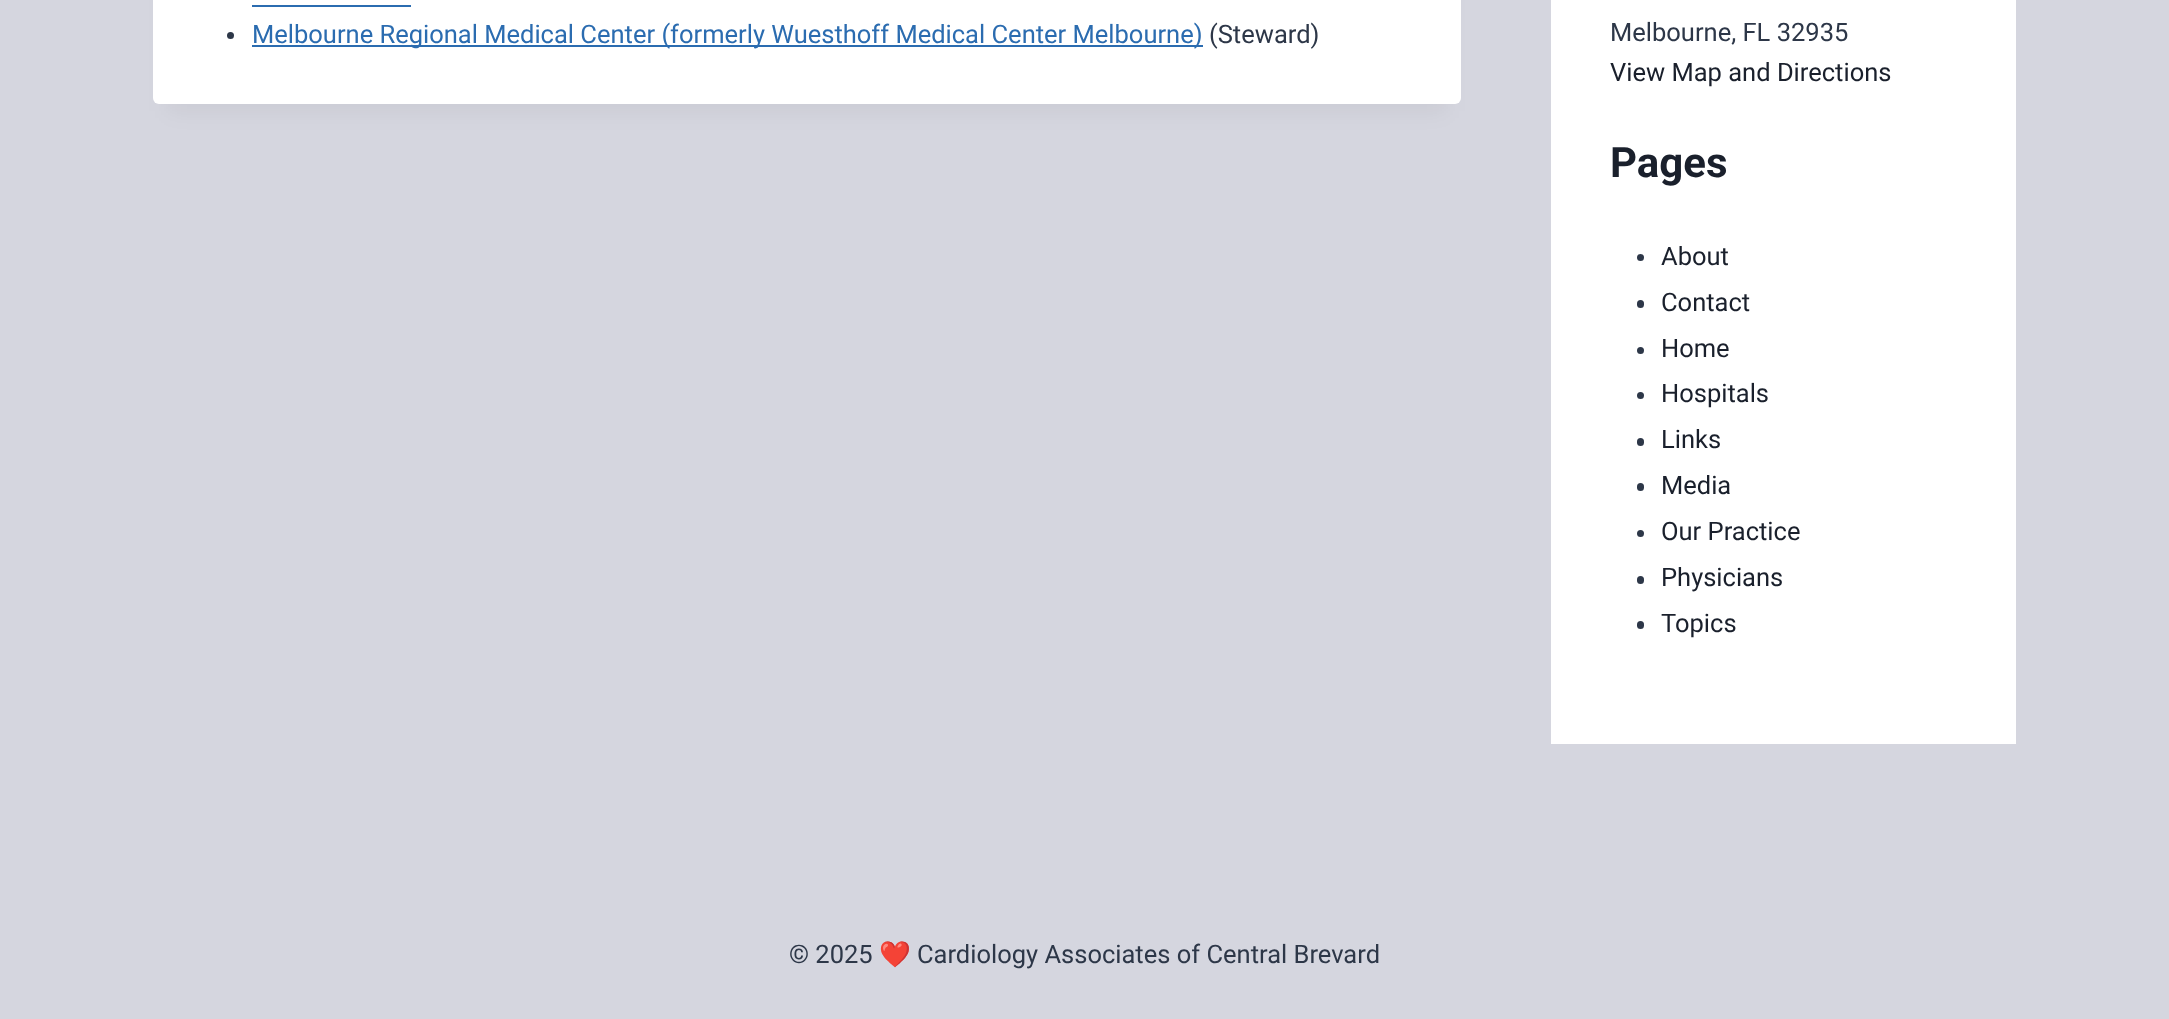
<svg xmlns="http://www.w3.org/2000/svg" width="2169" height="1019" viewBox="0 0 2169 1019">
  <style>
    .t1 { font: 25.5px Roboto; fill: #2b6cb0; }
    .t2 { font: 25.5px Roboto; fill: #2d3748; }
    .t3 { font: 25.5px Roboto; fill: #1a202c; }
    .t4 { font: bold 42px Roboto; fill: #1a202c; }
    .t5 { font: 25.5px Noto Color Emoji; fill: #2d3748; }
  </style>
  <rect width="100%" height="100%" fill="#d5d6df"/>
  <rect x="168" y="-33" width="1278" height="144" fill="#0000000d" filter="blur(11px)"/>
  <rect x="153" y="-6" width="1308" height="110" rx="6" fill="#fff"/>
  <rect x="252" y="5" width="159" height="2" fill="#2b6cb0"/>
  <circle cx="230.5" cy="35.5" r="3.5" fill="#2d3748"/>
  <rect x="252" y="45" width="951" height="2" fill="#2b6cb0"/>
  <text x="252" y="43" class="t1">Melbourne Regional Medical Center (formerly Wuesthoff Medical Center Melbourne)</text>
  <text x="1209" y="43" class="t2">(Steward)</text>
  <rect x="1551" y="0" width="465" height="744" fill="#fff"/>
  <text x="1610" y="41" class="t2">Melbourne, FL 32935</text>
  <text x="1610" y="81" class="t3">View Map and Directions</text>
  <text x="1610" y="177" class="t4">Pages</text>
  <circle cx="1640.5" cy="257.5" r="3.5" fill="#2d3748"/>
  <text x="1661" y="265" class="t3">About</text>
  <rect x="1637" y="300" width="7" height="8" rx="3.5" fill="#2d3748"/>
  <text x="1661" y="311" class="t3">Contact</text>
  <circle cx="1640.5" cy="350.5" r="3.5" fill="#2d3748"/>
  <text x="1661" y="357" class="t3">Home</text>
  <circle cx="1640.5" cy="395.5" r="3.5" fill="#2d3748"/>
  <text x="1661" y="402" class="t3">Hospitals</text>
  <rect x="1637" y="438" width="7" height="8" rx="3.5" fill="#2d3748"/>
  <text x="1661" y="448" class="t3">Links</text>
  <rect x="1637" y="483" width="7" height="8" rx="3.5" fill="#2d3748"/>
  <text x="1661" y="494" class="t3">Media</text>
  <circle cx="1640.5" cy="533.5" r="3.5" fill="#2d3748"/>
  <text x="1661" y="540" class="t3">Our Practice</text>
  <rect x="1637" y="576" width="7" height="8" rx="3.5" fill="#2d3748"/>
  <text x="1661" y="586" class="t3">Physicians</text>
  <rect x="1637" y="621" width="7" height="8" rx="3.5" fill="#2d3748"/>
  <text x="1661" y="632" class="t3">Topics</text>
  <text x="789" y="963" class="t2">© 2025</text>
  <text x="879" y="963" class="t5">❤️</text>
  <text x="917" y="963" class="t2">Cardiology Associates of Central Brevard</text>
</svg>
